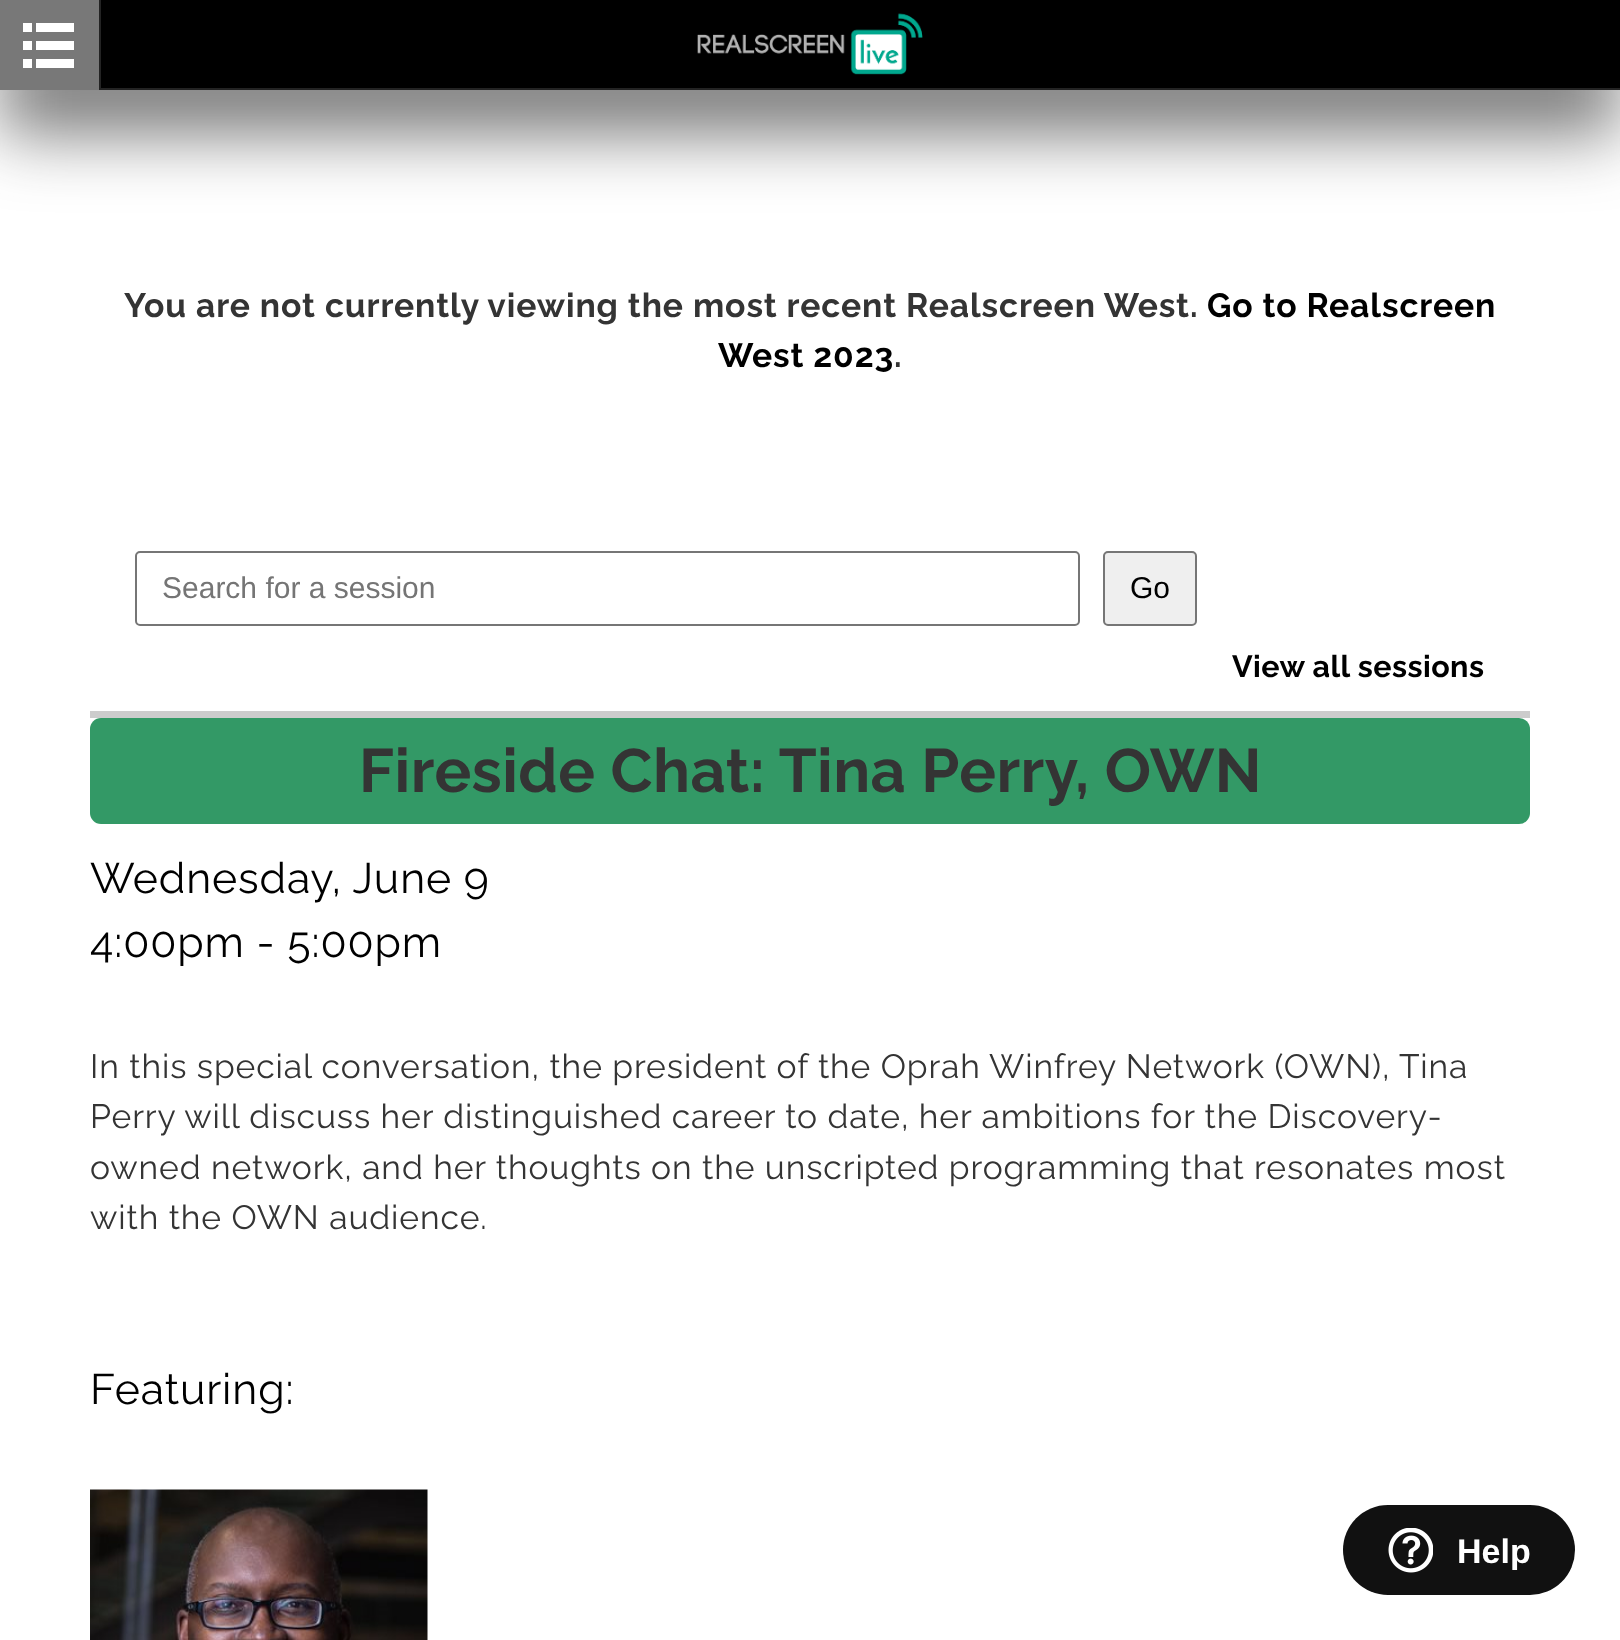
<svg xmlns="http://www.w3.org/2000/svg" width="1620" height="1640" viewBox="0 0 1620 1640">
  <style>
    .t1 { font: bold 33.65px Raleway; letter-spacing: 0.9px; fill: #343434; }
    .t2 { font: bold 33.65px Raleway; letter-spacing: 0.9px; fill: #000; }
    .t3 { font: 30px Liberation Sans; fill: #757575; }
    .t4 { font: 30px Liberation Sans; fill: #000; }
    .t5 { font: bold 30.5px Raleway; letter-spacing: 0.45px; fill: #000; }
    .t6 { font: bold 61.25px Raleway; letter-spacing: 0.45px; fill: #343434; }
    .t7 { font: 42.75px Raleway; letter-spacing: 0.9px; fill: #000; }
    .t8 { font: 33.65px Raleway; letter-spacing: 0.9px; fill: #343434; }
    .t9 { font: bold 34px Liberation Sans; fill: #fff; }
  </style>
  <rect width="100%" height="100%" fill="#fff"/>
  <rect x="0" y="43" width="1620" height="90" fill="#323232ab" filter="blur(34px)"/>
  <rect x="101" y="0" width="1519" height="88" fill="#000"/>
  <image x="697" y="13" width="226" height="62" href="images/1.png"/>
  <rect x="101" y="88" width="1519" height="2" fill="#232323"/>
  <rect x="0" y="0" width="99" height="90" fill="#787878"/>
  <rect x="99" y="0" width="2" height="90" fill="#232323"/>
  <rect x="23" y="23" width="9" height="9" fill="#fff"/>
  <rect x="36" y="23" width="38" height="9" fill="#fff"/>
  <rect x="23" y="41" width="9" height="9" fill="#fff"/>
  <rect x="36" y="41" width="38" height="9" fill="#fff"/>
  <rect x="23" y="59" width="9" height="9" fill="#fff"/>
  <rect x="36" y="59" width="38" height="9" fill="#fff"/>
  <text x="124" y="317" class="t1">You are not currently viewing the most recent Realscreen West.</text>
  <text x="1207" y="317" class="t2">Go to Realscreen</text>
  <text x="718" y="367" class="t2">West 2023</text>
  <text x="894" y="367" class="t1">.</text>
  <rect x="90" y="711" width="1440" height="7" fill="#ccc"/>
  <rect x="136" y="552" width="943" height="73" rx="4" fill="none" stroke="#767676" stroke-width="2"/>
  <text x="162" y="598" class="t3">Search for a session</text>
  <rect x="1104" y="552" width="92" height="73" rx="4" fill="#efefef" stroke="#767676" stroke-width="2"/>
  <text x="1130" y="598" class="t4">Go</text>
  <text x="1232" y="677" class="t5">View all sessions</text>
  <rect x="90" y="718" width="1440" height="106" rx="11" fill="#396"/>
  <text x="359" y="792" class="t6">Fireside Chat: Tina Perry, OWN</text>
  <text x="90" y="893" class="t7">Wednesday, June 9</text>
  <text x="90" y="957" class="t7">4:00pm - 5:00pm</text>
  <text x="90" y="1078" class="t8">In this special conversation, the president of the Oprah Winfrey Network (OWN), Tina</text>
  <text x="90" y="1128" class="t8">Perry will discuss her distinguished career to date, her ambitions for the Discovery-</text>
  <text x="90" y="1179" class="t8">owned network, and her thoughts on the unscripted programming that resonates most</text>
  <text x="90" y="1229" class="t8">with the OWN audience.</text>
  <text x="90" y="1404" class="t7">Featuring:</text>
  <image x="90" y="1489" width="338" height="151" href="images/2.png"/>
  <rect x="1343" y="1505" width="232" height="90" rx="45" fill="#111"/>
  <image x="1388" y="1528" width="45" height="45" href="images/3.png"/>
  <text x="1457" y="1563" class="t9">Help</text>
</svg>
